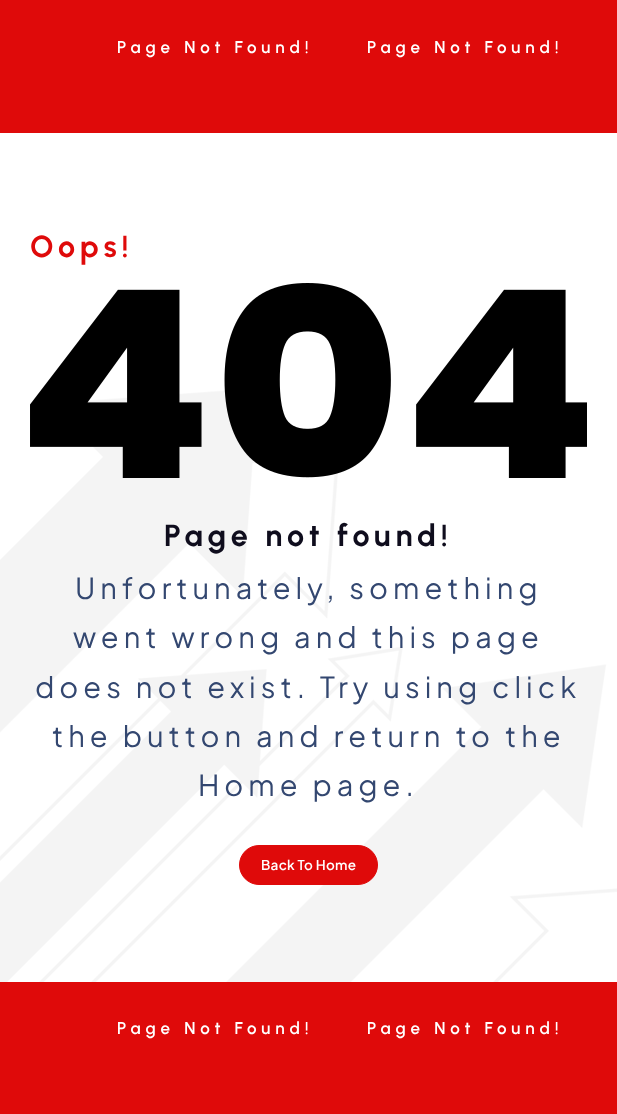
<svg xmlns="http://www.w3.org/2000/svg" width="617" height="1114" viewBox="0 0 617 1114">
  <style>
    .t1 { font: 600 17px Urbanist; letter-spacing: 5px; fill: #fff; }
    .t2 { font: bold 30.5px Urbanist; letter-spacing: 5px; fill: #df0a0a; }
    .t3 { font: bold 30.5px Urbanist; letter-spacing: 5px; fill: #0f0d1d; }
    .t4 { font: 29px Plus Jakarta Sans; letter-spacing: 5px; fill: #334770; }
    .t5 { font: 600 13.5px Plus Jakarta Sans; letter-spacing: 0.25px; fill: #fff; }
  </style>
  <rect width="100%" height="100%" fill="#fff"/>
  <rect x="0" y="0" width="617" height="133" fill="#df0a0a"/>
  <text x="117" y="53" class="t1">Page Not Found!</text>
  <text x="367" y="53" class="t1">Page Not Found!</text>
  <rect x="0" y="982" width="617" height="132" fill="#df0a0a"/>
  <text x="117" y="1034" class="t1">Page Not Found!</text>
  <text x="367" y="1034" class="t1">Page Not Found!</text>
  <text x="30" y="257" class="t2">Oops!</text>
  <image x="0" y="390" width="617" height="592" href="images/2.png"/>
  <image x="30" y="283" width="557" height="195" href="images/1.png"/>
  <text x="164" y="546" class="t3">Page not found!</text>
  <text x="75" y="599" class="t4">Unfortunately, something</text>
  <text x="73" y="648" class="t4">went wrong and this page</text>
  <text x="35" y="698" class="t4">does not exist. Try using click</text>
  <text x="52" y="747" class="t4">the button and return to the</text>
  <text x="198" y="796" class="t4">Home page.</text>
  <rect x="239.5" y="845.5" width="138" height="39" rx="19.5" fill="#df0a0a" stroke="#df0a0a"/>
  <text x="261" y="870" class="t5">Back To Home</text>
</svg>
